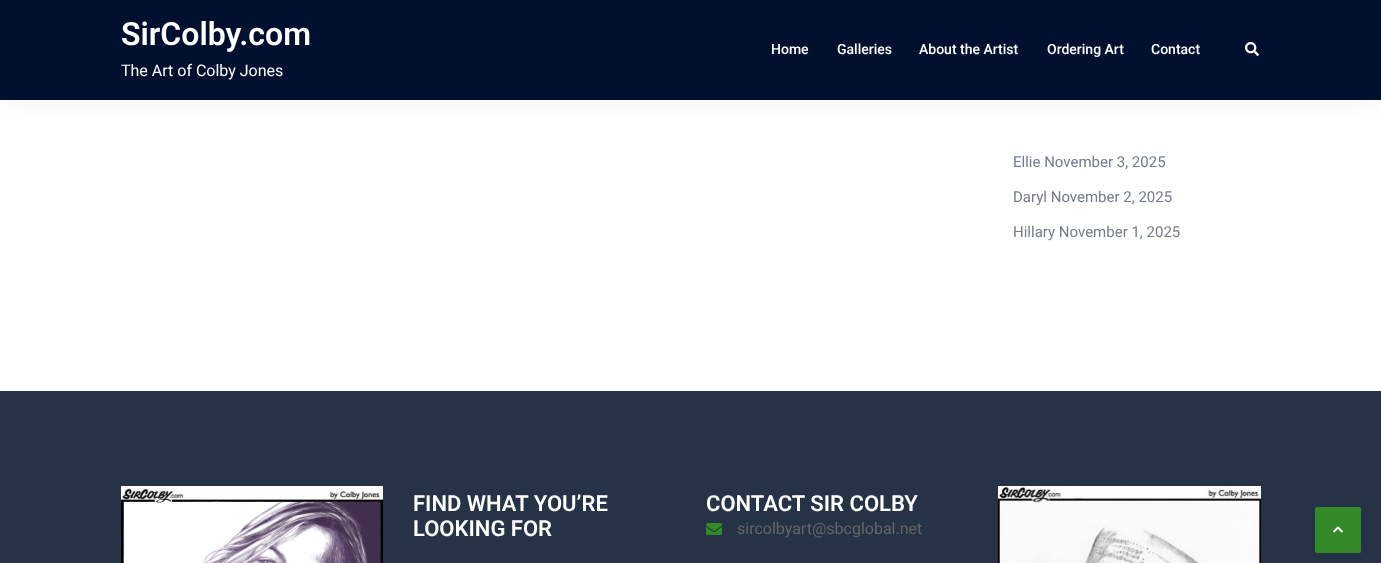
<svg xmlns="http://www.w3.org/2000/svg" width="1381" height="563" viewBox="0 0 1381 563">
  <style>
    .t1 { font: 600 32px Roboto; fill: #fff; }
    .t2 { font: 16px Roboto; fill: #fff; }
    .t3 { font: 500 14px Roboto; fill: #fff; }
    .t4 { font: 15px Roboto; fill: #737c8c; }
    .t5 { font: 600 22px Roboto; fill: #fff; }
    .t6 { font: 16px Roboto; fill: #666; }
  </style>
  <rect width="100%" height="100%" fill="#fff"/>
  <rect x="0" y="0" width="1381" height="100" fill="#0000000d" filter="blur(15px)"/>
  <rect x="0" y="0" width="1381" height="100" fill="#00102e"/>
  <text x="121" y="45" class="t1">SirColby.com</text>
  <text x="121" y="76" class="t2">The Art of Colby Jones</text>
  <text x="771" y="54" class="t3">Home</text>
  <text x="837" y="54" class="t3">Galleries</text>
  <text x="919" y="54" class="t3">About the Artist</text>
  <text x="1047" y="54" class="t3">Ordering Art</text>
  <text x="1151" y="54" class="t3">Contact</text>
  <image x="1245" y="42" width="14" height="14" href="images/1.png"/>
  <text x="1013" y="167" class="t4">Ellie November 3, 2025</text>
  <text x="1013" y="202" class="t4">Daryl November 2, 2025</text>
  <text x="1013" y="237" class="t4">Hillary November 1, 2025</text>
  <rect x="0" y="391" width="1381" height="172" fill="#263246"/>
  <image x="121" y="486" width="262" height="77" href="images/2.png"/>
  <text x="413" y="511" class="t5">FIND WHAT YOU’RE</text>
  <text x="413" y="536" class="t5">LOOKING FOR</text>
  <text x="706" y="511" class="t5">CONTACT SIR COLBY</text>
  <image x="706" y="523" width="16" height="12" href="images/3.png"/>
  <text x="737" y="534" class="t6">sircolbyart@sbcglobal.net</text>
  <image x="998" y="486" width="263" height="77" href="images/4.png"/>
  <rect x="1315" y="507" width="46" height="46" rx="2" fill="#348929"/>
  <path d="M1333.5 532L1338 527.5L1342.5 532" fill="none" stroke="#fff" stroke-width="2" stroke-linejoin="round"/>
</svg>
